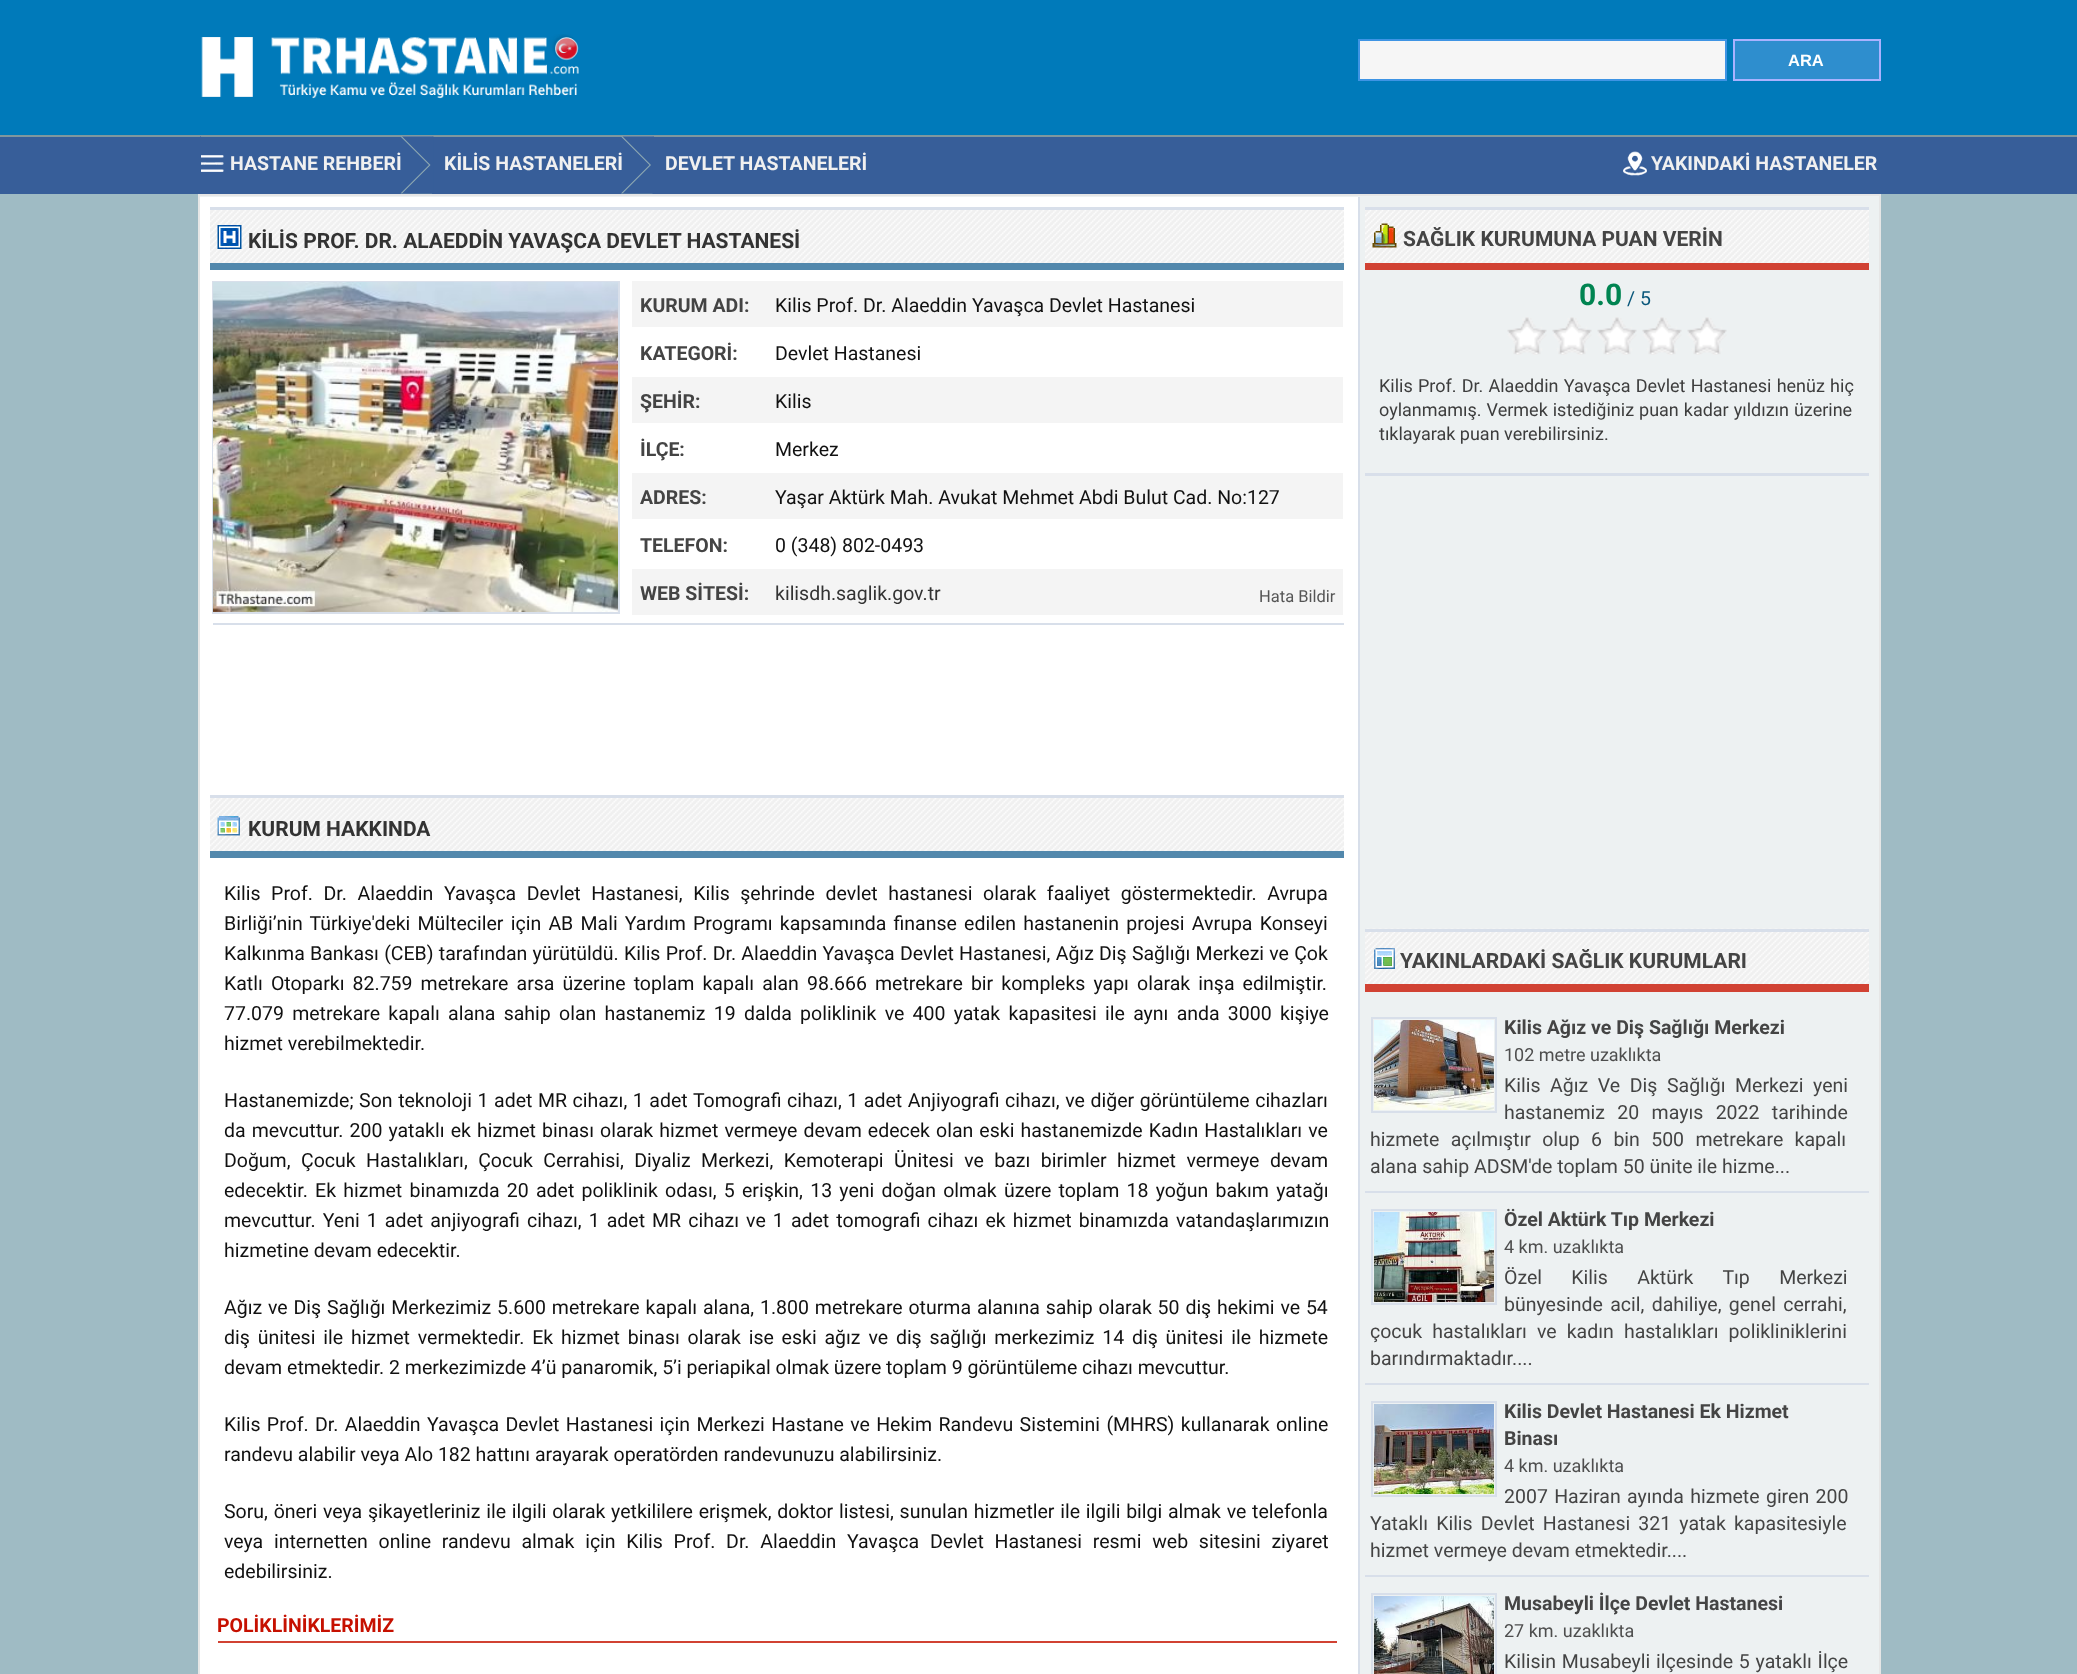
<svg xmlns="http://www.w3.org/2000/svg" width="2077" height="1674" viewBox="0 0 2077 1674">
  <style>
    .t1 { font: bold 16.5px Liberation Sans; fill: #fff; }
    .t2 { font: bold 19.5px Roboto; fill: #f0f0f0; }
    .t3 { font: bold 21px Roboto; fill: #333; }
    .t4 { font: bold 19.5px Roboto; fill: #444; }
    .t5 { font: 19.5px Roboto; fill: #111; }
    .t6 { font: 19.5px Roboto; fill: #333; }
    .t7 { font: 16.5px Roboto; fill: #555; }
    .t8 { font: bold 19.5px Roboto; fill: #c61000; }
    .t9 { font: bold 21px Roboto; fill: #444; }
    .t10 { font: bold 30px Roboto; fill: #008451; }
    .t11 { font: 19.5px Roboto; fill: #08567a; }
    .t12 { font: 18px Roboto; fill: #3d3d3d; }
    .t13 { font: 18px Roboto; fill: #4e4e4e; }
    .t14 { font: 19.5px Roboto; fill: #444; }
  </style>
  <defs>
    <clipPath id="clip1"><rect x="200" y="116" width="697" height="99"/></clipPath>
  </defs>
  <rect width="100%" height="100%" fill="#9fbbc4"/>
  <rect x="0" y="0" width="2077" height="135" fill="#007aba"/>
  <image x="201" y="34" width="378" height="65" href="images/1.png"/>
  <rect x="1359" y="40" width="367" height="40" fill="#f6f6f6" stroke="#3e94e4" stroke-width="2"/>
  <rect x="1734" y="40" width="146" height="40" fill="#2e8ece" stroke="#a9b2ff" stroke-width="2"/>
  <text x="1788" y="66" class="t1">ARA</text>
  <rect x="0" y="137" width="2077" height="57" fill="#375e99"/>
  <rect x="0" y="135" width="2077" height="2" fill="#80979e"/>
  <g clip-path="url(#clip1)">
    <path d="M169.5 136.5H201V165H198Z" fill="#375e99"/>
  </g>
  <image x="201" y="155" width="23" height="17" href="images/2.png"/>
  <text x="230" y="170" class="t2">HASTANE REHBERİ</text>
  <path d="M400.5 136.5H432V165H429ZM432 193.5H400.5L429 165H432Z" fill="#90aab2"/>
  <path d="M402 136.5H433.5V165H430.5ZM433.5 193.5H402L430.5 165H433.5Z" fill="#375e99"/>
  <text x="444" y="170" class="t2">KİLİS HASTANELERİ</text>
  <path d="M621 136.5H652.5V165H649.5ZM652.5 193.5H621L649.5 165H652.5Z" fill="#90aab2"/>
  <path d="M622.5 136.5H654V165H651ZM654 193.5H622.5L651 165H654Z" fill="#375e99"/>
  <text x="665" y="170" class="t2">DEVLET HASTANELERİ</text>
  <image x="1623" y="151" width="24" height="25" href="images/3.png"/>
  <text x="1651" y="170" class="t2">YAKINDAKİ HASTANELER</text>
  <rect x="199" y="195" width="1681" height="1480" fill="#edf1f2" stroke="#e6e6e6" stroke-width="2"/>
  <rect x="200" y="197" width="1158" height="1477" fill="#fff"/>
  <rect x="1358" y="197" width="2" height="1477" fill="#d8dfea"/>
  <image x="210" y="210" width="1134" height="53" href="images/4.png"/>
  <rect x="210" y="207" width="1134" height="3" fill="#d8dfea"/>
  <rect x="210" y="263" width="1134" height="7" fill="#5288ac"/>
  <image x="217" y="225" width="25" height="24" href="images/5.png"/>
  <text x="248" y="248" class="t3">KİLİS PROF. DR. ALAEDDİN YAVAŞCA DEVLET HASTANESİ</text>
  <rect x="213" y="282" width="406" height="331" fill="none" stroke="#d8dfea" stroke-width="2"/>
  <image x="213" y="282" width="405" height="330" href="images/6.png"/>
  <rect x="632" y="281" width="711" height="46" fill="#f4f4f4"/>
  <text x="640" y="312" class="t4">KURUM ADI:</text>
  <text x="775" y="312" class="t5">Kilis Prof. Dr. Alaeddin Yavaşca Devlet Hastanesi</text>
  <text x="640" y="360" class="t4">KATEGORİ:</text>
  <text x="775" y="360" class="t5">Devlet Hastanesi</text>
  <rect x="632" y="377" width="711" height="46" fill="#f4f4f4"/>
  <text x="640" y="408" class="t4">ŞEHİR:</text>
  <text x="775" y="408" class="t5">Kilis</text>
  <text x="640" y="456" class="t4">İLÇE:</text>
  <text x="775" y="456" class="t5">Merkez</text>
  <rect x="632" y="473" width="711" height="46" fill="#f4f4f4"/>
  <text x="640" y="504" class="t4">ADRES:</text>
  <text x="775" y="504" class="t5">Yaşar Aktürk Mah. Avukat Mehmet Abdi Bulut Cad. No:127</text>
  <text x="640" y="552" class="t4">TELEFON:</text>
  <text x="775" y="552" class="t5">0 (348) 802-0493</text>
  <rect x="632" y="569" width="711" height="46" fill="#f4f4f4"/>
  <text x="640" y="600" class="t4">WEB SİTESİ:</text>
  <text x="775" y="600" class="t6">kilisdh.saglik.gov.tr</text>
  <text x="1259" y="602" class="t7">Hata Bildir</text>
  <rect x="213" y="623" width="1131" height="2" fill="#d8dfea"/>
  <image x="210" y="798" width="1134" height="53" href="images/4.png"/>
  <rect x="210" y="795" width="1134" height="3" fill="#d8dfea"/>
  <rect x="210" y="851" width="1134" height="7" fill="#5288ac"/>
  <image x="217" y="816" width="23" height="20" href="images/7.png"/>
  <text x="248" y="836" class="t3">KURUM HAKKINDA</text>
  <text x="224" y="900" word-spacing="5.75" class="t5">Kilis Prof. Dr. Alaeddin Yavaşca Devlet Hastanesi, Kilis şehrinde devlet hastanesi olarak faaliyet göstermektedir. Avrupa</text>
  <text x="224" y="930" word-spacing="2.4" class="t5">Birliği’nin Türkiye'deki Mülteciler için AB Mali Yardım Programı kapsamında finanse edilen hastanenin projesi Avrupa Konseyi</text>
  <text x="224" y="960" word-spacing="0.4" class="t5">Kalkınma Bankası (CEB) tarafından yürütüldü. Kilis Prof. Dr. Alaeddin Yavaşca Devlet Hastanesi, Ağız Diş Sağlığı Merkezi ve Çok</text>
  <text x="224" y="990" word-spacing="3.25" class="t5">Katlı Otoparkı 82.759 metrekare arsa üzerine toplam kapalı alan 98.666 metrekare bir kompleks yapı olarak inşa edilmiştir.</text>
  <text x="224" y="1020" word-spacing="3.4" class="t5">77.079 metrekare kapalı alana sahip olan hastanemiz 19 dalda poliklinik ve 400 yatak kapasitesi ile aynı anda 3000 kişiye</text>
  <text x="224" y="1050" class="t5">hizmet verebilmektedir.</text>
  <text x="224" y="1107" word-spacing="0.75" class="t5">Hastanemizde; Son teknoloji 1 adet MR cihazı, 1 adet Tomografi cihazı, 1 adet Anjiyografi cihazı, ve diğer görüntüleme cihazları</text>
  <text x="224" y="1137" word-spacing="1.25" class="t5">da mevcuttur. 200 yataklı ek hizmet binası olarak hizmet vermeye devam edecek olan eski hastanemizde Kadın Hastalıkları ve</text>
  <text x="224" y="1167" word-spacing="5.6" class="t5">Doğum, Çocuk Hastalıkları, Çocuk Cerrahisi, Diyaliz Merkezi, Kemoterapi Ünitesi ve bazı birimler hizmet vermeye devam</text>
  <text x="224" y="1197" word-spacing="2.4" class="t5">edecektir. Ek hizmet binamızda 20 adet poliklinik odası, 5 erişkin, 13 yeni doğan olmak üzere toplam 18 yoğun bakım yatağı</text>
  <text x="224" y="1227" word-spacing="2.25" class="t5">mevcuttur. Yeni 1 adet anjiyografi cihazı, 1 adet MR cihazı ve 1 adet tomografi cihazı ek hizmet binamızda vatandaşlarımızın</text>
  <text x="224" y="1257" class="t5">hizmetine devam edecektir.</text>
  <text x="224" y="1314" word-spacing="1" class="t5">Ağız ve Diş Sağlığı Merkezimiz 5.600 metrekare kapalı alana, 1.800 metrekare oturma alanına sahip olarak 50 diş hekimi ve 54</text>
  <text x="224" y="1344" word-spacing="3" class="t5">diş ünitesi ile hizmet vermektedir. Ek hizmet binası olarak ise eski ağız ve diş sağlığı merkezimiz 14 diş ünitesi ile hizmete</text>
  <text x="224" y="1374" class="t5">devam etmektedir. 2 merkezimizde 4’ü panaromik, 5’i periapikal olmak üzere toplam 9 görüntüleme cihazı mevcuttur.</text>
  <text x="224" y="1431" word-spacing="1.5" class="t5">Kilis Prof. Dr. Alaeddin Yavaşca Devlet Hastanesi için Merkezi Hastane ve Hekim Randevu Sistemini (MHRS) kullanarak online</text>
  <text x="224" y="1461" class="t5">randevu alabilir veya Alo 182 hattını arayarak operatörden randevunuzu alabilirsiniz.</text>
  <text x="224" y="1518" word-spacing="0.9" class="t5">Soru, öneri veya şikayetleriniz ile ilgili olarak yetkililere erişmek, doktor listesi, sunulan hizmetler ile ilgili bilgi almak ve telefonla</text>
  <text x="224" y="1548" word-spacing="5.9" class="t5">veya internetten online randevu almak için Kilis Prof. Dr. Alaeddin Yavaşca Devlet Hastanesi resmi web sitesini ziyaret</text>
  <text x="224" y="1578" class="t5">edebilirsiniz.</text>
  <rect x="218" y="1641" width="1119" height="2" fill="#d14233"/>
  <text x="217" y="1632" class="t8">POLİKLİNİKLERİMİZ</text>
  <image x="1365" y="210" width="504" height="53" href="images/8.png"/>
  <rect x="1365" y="207" width="504" height="3" fill="#d8dfea"/>
  <rect x="1365" y="263" width="504" height="7" fill="#d14233"/>
  <image x="1372" y="223" width="25" height="25" href="images/9.png"/>
  <text x="1403" y="246" class="t9">SAĞLIK KURUMUNA PUAN VERİN</text>
  <text x="1579" y="305" class="t10">0.0</text>
  <text x="1627" y="305" class="t11">/ 5</text>
  <image x="1507" y="317" width="220" height="38" href="images/10.png"/>
  <text x="1379" y="392" word-spacing="0.75" class="t12">Kilis Prof. Dr. Alaeddin Yavaşca Devlet Hastanesi henüz hiç</text>
  <text x="1379" y="416" word-spacing="0.5" class="t12">oylanmamış. Vermek istediğiniz puan kadar yıldızın üzerine</text>
  <text x="1379" y="440" class="t12">tıklayarak puan verebilirsiniz.</text>
  <rect x="1365" y="473" width="504" height="3" fill="#d8dfea"/>
  <image x="1365" y="928" width="504" height="56" href="images/11.png"/>
  <rect x="1365" y="929" width="504" height="3" fill="#d8dfea"/>
  <rect x="1365" y="984" width="504" height="8" fill="#d14233"/>
  <image x="1374" y="948" width="21" height="21" href="images/12.png"/>
  <text x="1400" y="968" class="t9">YAKINLARDAKİ SAĞLIK KURUMLARI</text>
  <rect x="1365" y="1191" width="504" height="2" fill="#d8dfea"/>
  <rect x="1372" y="1018" width="124" height="94" fill="none" stroke="#d8dfea" stroke-width="2"/>
  <image x="1374" y="1020" width="120" height="90" href="images/13.png"/>
  <text x="1504" y="1034" class="t4">Kilis Ağız ve Diş Sağlığı Merkezi</text>
  <text x="1504" y="1061" class="t13">102 metre uzaklıkta</text>
  <text x="1504" y="1092" word-spacing="4.75" class="t14">Kilis Ağız Ve Diş Sağlığı Merkezi yeni</text>
  <text x="1504" y="1119" word-spacing="7.5" class="t14">hastanemiz 20 mayıs 2022 tarihinde</text>
  <text x="1370" y="1146" word-spacing="6.5" class="t14">hizmete açılmıştır olup 6 bin 500 metrekare kapalı</text>
  <text x="1370" y="1173" class="t14">alana sahip ADSM'de toplam 50 ünite ile hizme...</text>
  <rect x="1365" y="1383" width="504" height="2" fill="#d8dfea"/>
  <rect x="1372" y="1210" width="124" height="94" fill="none" stroke="#d8dfea" stroke-width="2"/>
  <image x="1374" y="1212" width="120" height="90" href="images/14.png"/>
  <text x="1504" y="1226" class="t4">Özel Aktürk Tıp Merkezi</text>
  <text x="1504" y="1253" class="t13">4 km. uzaklıkta</text>
  <text x="1504" y="1284" word-spacing="24.5" class="t14">Özel Kilis Aktürk Tıp Merkezi</text>
  <text x="1504" y="1311" word-spacing="2.5" class="t14">bünyesinde acil, dahiliye, genel cerrahi,</text>
  <text x="1370" y="1338" word-spacing="5.25" class="t14">çocuk hastalıkları ve kadın hastalıkları polikliniklerini</text>
  <text x="1370" y="1365" class="t14">barındırmaktadır....</text>
  <rect x="1365" y="1575" width="504" height="2" fill="#d8dfea"/>
  <rect x="1372" y="1402" width="124" height="94" fill="none" stroke="#d8dfea" stroke-width="2"/>
  <image x="1374" y="1404" width="120" height="90" href="images/15.png"/>
  <text x="1504" y="1418" class="t4">Kilis Devlet Hastanesi Ek Hizmet</text>
  <text x="1504" y="1445" class="t4">Binası</text>
  <text x="1504" y="1472" class="t13">4 km. uzaklıkta</text>
  <text x="1504" y="1503" word-spacing="1.5" class="t14">2007 Haziran ayında hizmete giren 200</text>
  <text x="1370" y="1530" word-spacing="3.25" class="t14">Yataklı Kilis Devlet Hastanesi 321 yatak kapasitesiyle</text>
  <text x="1370" y="1557" class="t14">hizmet vermeye devam etmektedir....</text>
  <rect x="1372" y="1594" width="124" height="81" fill="none" stroke="#d8dfea" stroke-width="2"/>
  <image x="1374" y="1596" width="120" height="78" href="images/16.png"/>
  <text x="1504" y="1610" class="t4">Musabeyli İlçe Devlet Hastanesi</text>
  <text x="1504" y="1637" class="t13">27 km. uzaklıkta</text>
  <text x="1504" y="1668" word-spacing="1" class="t14">Kilisin Musabeyli ilçesinde 5 yataklı İlçe</text>
</svg>
